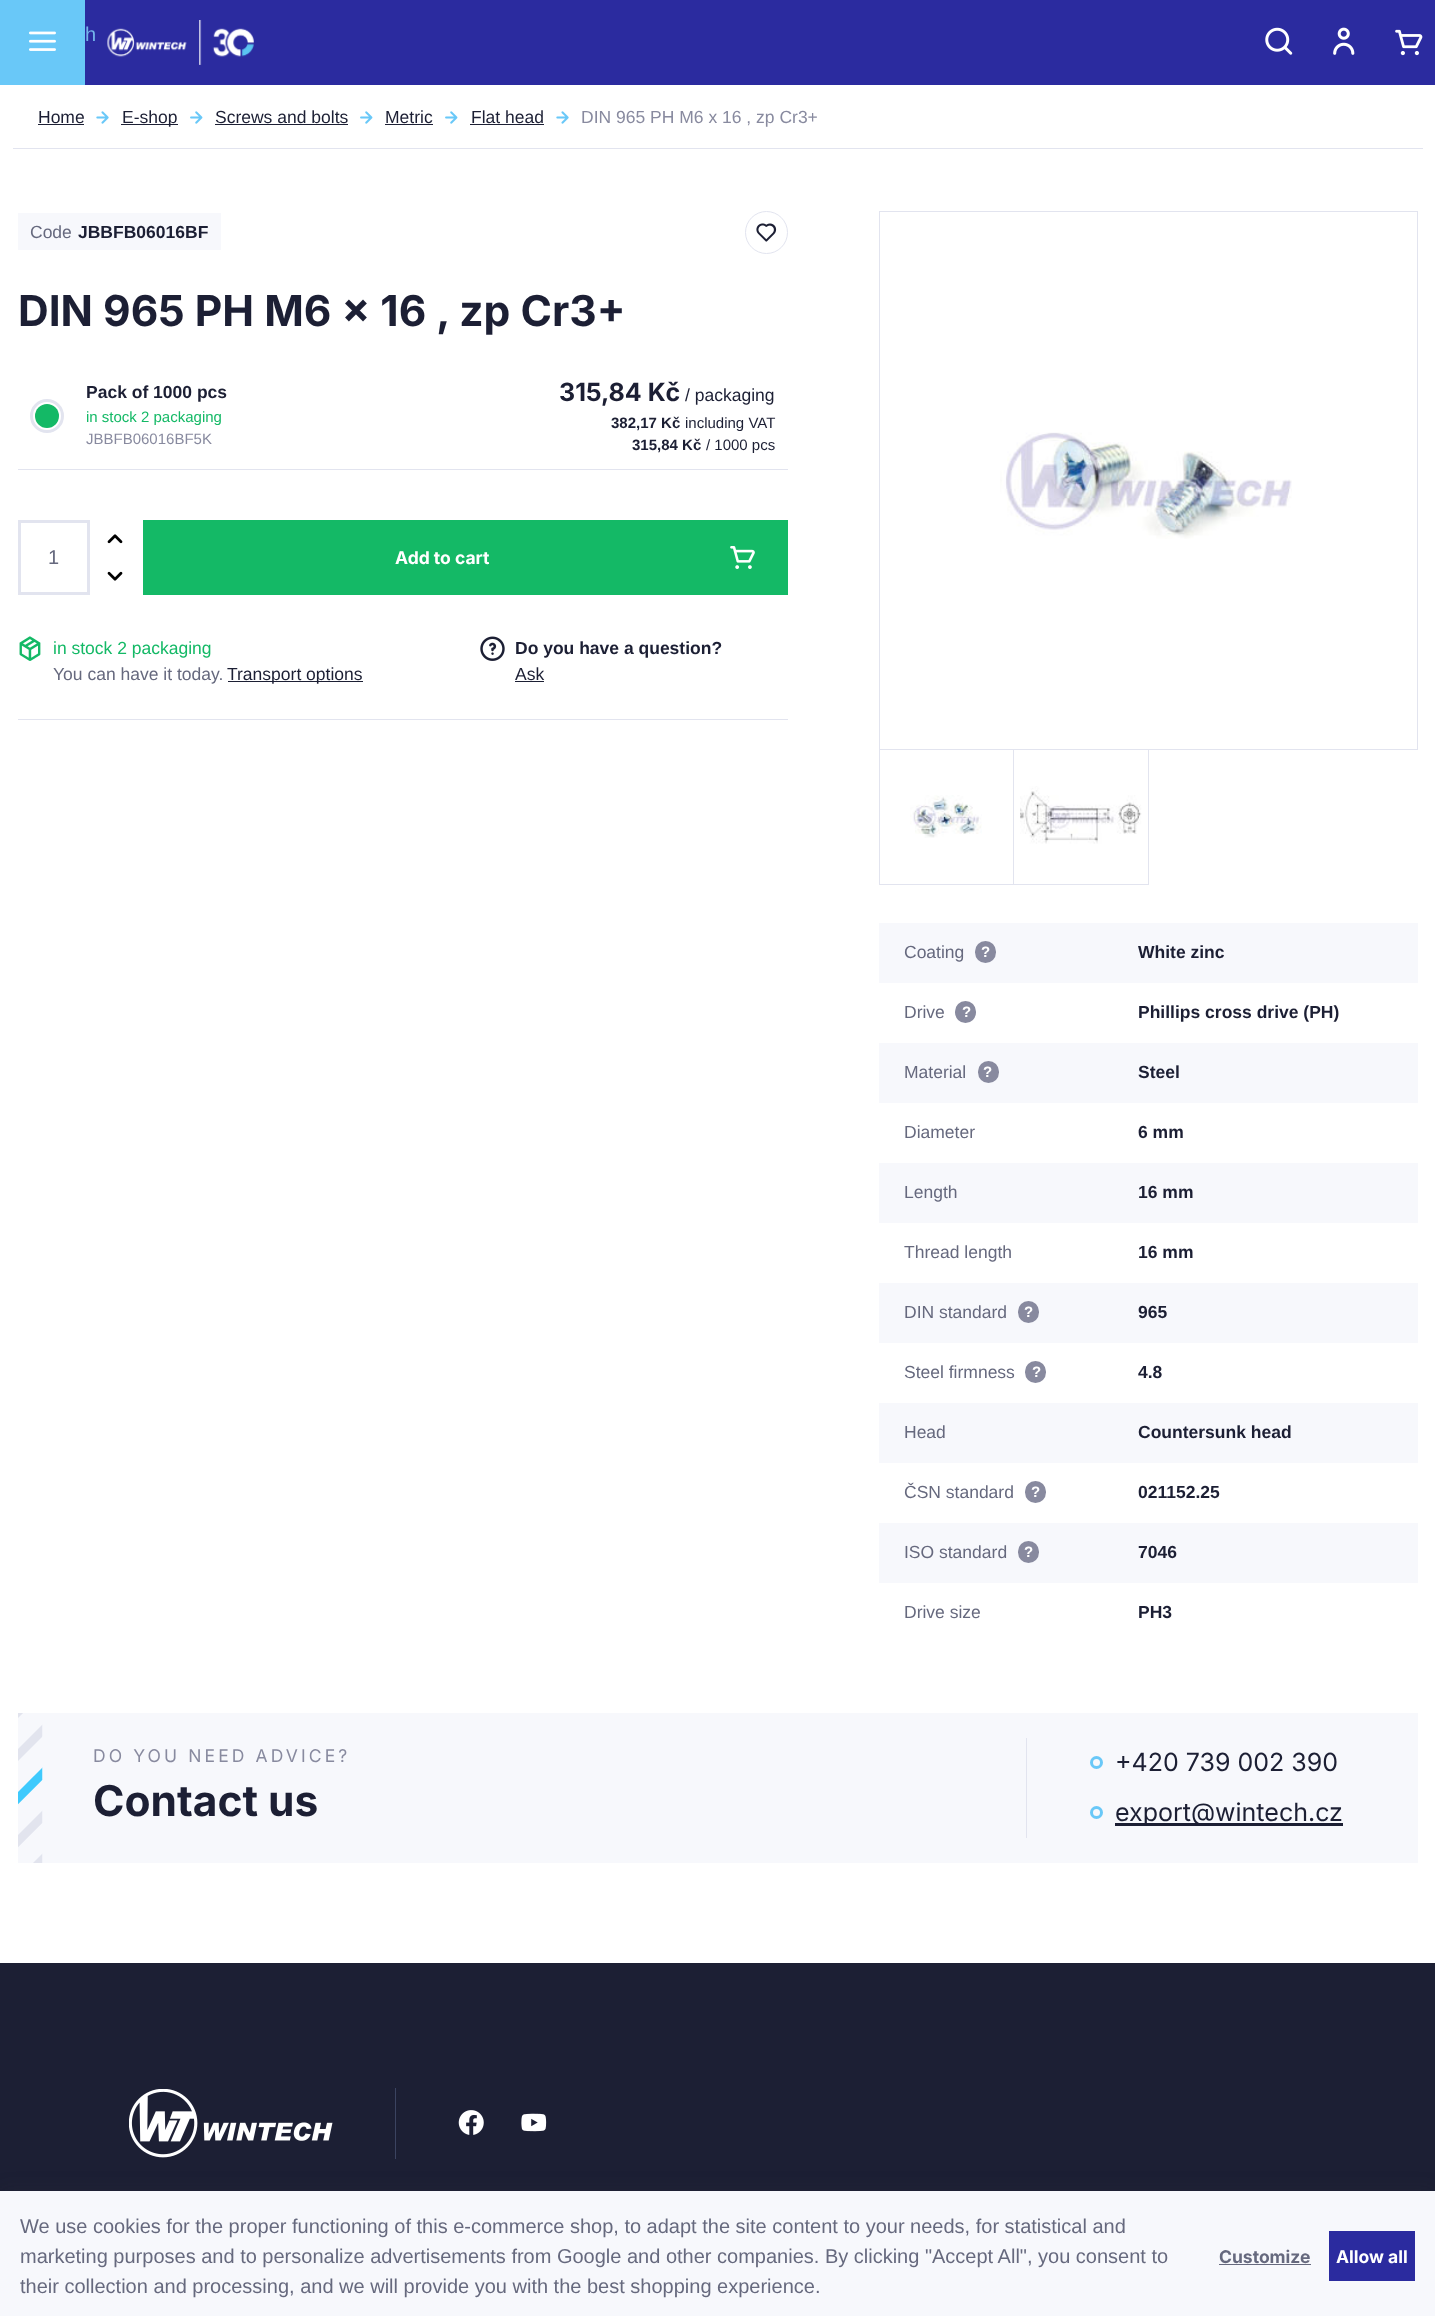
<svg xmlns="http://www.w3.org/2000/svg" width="1435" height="2316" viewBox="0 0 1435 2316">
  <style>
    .t1 { font: 20px Liberation Sans; fill: #74b6eb; }
    .t2 { font: 17.5px Liberation Sans; fill: #1c1f34; }
    .t3 { font: 17.5px Liberation Sans; fill: #888a9f; }
    .t4 { font: 17.5px Liberation Sans; fill: #66697e; }
    .t5 { font: bold 17.5px Liberation Sans; fill: #1c1f34; }
    .t6 { font: bold 42.5px Inter; fill: #1c1f34; }
    .t7 { font: 15px Liberation Sans; fill: #14b966; }
    .t8 { font: 15px Liberation Sans; fill: #888a9f; }
    .t9 { font: bold 25px Inter; fill: #1c1f34; }
    .t10 { font: bold 15px Liberation Sans; fill: #1c1f34; }
    .t11 { font: 15px Liberation Sans; fill: #1c1f34; }
    .t12 { font: 20px Liberation Sans; fill: #66697e; }
    .t13 { font: bold 17.5px Inter; fill: #fff; }
    .t14 { font: 17.5px Liberation Sans; fill: #14b966; }
    .t15 { font: bold 15px Liberation Sans; fill: #fff; }
    .t16 { font: 17.5px Inter; letter-spacing: 3.1px; fill: #888a9f; }
    .t17 { font: 25px Inter; fill: #1c1f34; }
    .t18 { font: bold 17.5px Inter; fill: #66697e; }
  </style>
  <rect width="100%" height="100%" fill="#fff"/>
  <rect x="85" y="0" width="1350" height="85" fill="#2b2b9f"/>
  <rect x="0" y="0" width="85" height="85" fill="#69c8f8"/>
  <image x="29" y="31" width="27" height="20" href="images/1.png"/>
  <image x="107" y="20" width="147" height="45" href="images/2.png"/>
  <image x="1265" y="27" width="28" height="28" href="images/3.png"/>
  <image x="1333" y="27" width="22" height="28" href="images/4.png"/>
  <image x="1395" y="29" width="28" height="27" href="images/5.png"/>
  <text x="85" y="41" class="t1">h</text>
  <rect x="13" y="148" width="1410" height="1" fill="#e2e4ef"/>
  <text x="38" y="123" class="t2">Home</text>
  <rect x="38" y="124" width="46" height="1" fill="#1c1f34"/>
  <image x="96" y="111" width="13" height="13" href="images/6.png"/>
  <rect x="121" y="124" width="57" height="1" fill="#1c1f34"/>
  <text x="122" y="123" class="t2">E-shop</text>
  <image x="190" y="111" width="13" height="13" href="images/7.png"/>
  <text x="215" y="123" class="t2">Screws and bolts</text>
  <rect x="215" y="124" width="133" height="1" fill="#1c1f34"/>
  <image x="360" y="111" width="13" height="13" href="images/7.png"/>
  <text x="385" y="123" class="t2">Metric</text>
  <rect x="385" y="124" width="48" height="1" fill="#1c1f34"/>
  <image x="445" y="111" width="13" height="13" href="images/7.png"/>
  <text x="471" y="123" class="t2">Flat head</text>
  <rect x="470" y="124" width="74" height="1" fill="#1c1f34"/>
  <image x="556" y="111" width="13" height="13" href="images/6.png"/>
  <text x="581" y="123" class="t3">DIN 965 PH M6 x 16 , zp Cr3+</text>
  <rect x="18" y="213" width="203" height="37" fill="#f7f8fc"/>
  <text x="30" y="238" class="t4">Code</text>
  <text x="78" y="238" class="t5">JBBFB06016BF</text>
  <circle cx="766.5" cy="232.5" r="21" fill="none" stroke="#e2e4ef"/>
  <image x="756" y="223" width="21" height="19" href="images/8.png"/>
  <text x="18" y="326" class="t6">DIN 965 PH M6 x 16 , zp Cr3+</text>
  <rect x="879.5" y="211.5" width="538" height="538" fill="none" stroke="#e2e4ef"/>
  <image x="1000" y="432" width="292" height="107" href="images/9.png"/>
  <rect x="879.5" y="749.5" width="134" height="135" fill="none" stroke="#e2e4ef"/>
  <image x="910" y="795" width="72" height="43" href="images/10.png"/>
  <rect x="1013.5" y="749.5" width="135" height="135" fill="none" stroke="#e2e4ef"/>
  <image x="1020" y="786" width="122" height="58" href="images/11.png"/>
  <rect x="18" y="469" width="770" height="1" fill="#e2e4ef"/>
  <circle cx="47" cy="416" r="15.5" fill="none" stroke="#e2e4ef" stroke-width="3"/>
  <circle cx="47" cy="416" r="12" fill="#14b966"/>
  <text x="86" y="398" class="t5">Pack of 1000 pcs</text>
  <text x="86" y="422" class="t7">in stock 2 packaging</text>
  <text x="86" y="444" class="t8">JBBFB06016BF5K</text>
  <text x="559" y="401" class="t9">315,84 Kč</text>
  <text x="685" y="401" class="t2">/ packaging</text>
  <text x="611" y="428" class="t10">382,17 Kč</text>
  <text x="685" y="428" class="t11">including VAT</text>
  <text x="632" y="450" class="t10">315,84 Kč</text>
  <text x="706" y="450" class="t11">/ 1000 pcs</text>
  <rect x="19.5" y="521.5" width="69" height="72" fill="none" stroke="#e2e4ef" stroke-width="3"/>
  <text x="48" y="564" class="t12">1</text>
  <image x="107" y="534" width="16" height="10" href="images/12.png"/>
  <image x="107" y="571" width="16" height="10" href="images/13.png"/>
  <rect x="143" y="520" width="645" height="75" fill="#14b966"/>
  <text x="395" y="564" class="t13">Add to cart</text>
  <image x="730" y="546" width="25" height="23" href="images/14.png"/>
  <rect x="18" y="719" width="770" height="1" fill="#e2e4ef"/>
  <image x="19" y="636" width="22" height="25" href="images/15.png"/>
  <text x="53" y="654" class="t14">in stock 2 packaging</text>
  <text x="53" y="680" class="t4">You can have it today.</text>
  <rect x="228" y="681" width="135" height="1" fill="#1c1f34"/>
  <text x="227" y="680" class="t2">Transport options</text>
  <image x="480" y="636" width="25" height="25" href="images/16.png"/>
  <text x="515" y="654" class="t5">Do you have a question?</text>
  <text x="515" y="680" class="t2">Ask</text>
  <rect x="515" y="681" width="29" height="1" fill="#1c1f34"/>
  <rect x="879" y="923" width="539" height="60" fill="#f7f8fc"/>
  <text x="904" y="958" class="t4">Coating</text>
  <rect x="975" y="941" width="21" height="22" rx="10.5" fill="#888a9f"/>
  <text x="981" y="957" class="t15">?</text>
  <text x="1138" y="958" class="t5">White zinc</text>
  <text x="904" y="1018" class="t4">Drive</text>
  <rect x="955" y="1001" width="21" height="22" rx="10.5" fill="#888a9f"/>
  <text x="962" y="1017" class="t15">?</text>
  <text x="1138" y="1018" class="t5">Phillips cross drive (PH)</text>
  <rect x="879" y="1043" width="539" height="60" fill="#f7f8fc"/>
  <text x="904" y="1078" class="t4">Material</text>
  <rect x="978" y="1061" width="21" height="22" rx="10.5" fill="#888a9f"/>
  <text x="983" y="1077" class="t15">?</text>
  <text x="1138" y="1078" class="t5">Steel</text>
  <text x="904" y="1138" class="t4">Diameter</text>
  <text x="1138" y="1138" class="t5">6 mm</text>
  <rect x="879" y="1163" width="539" height="60" fill="#f7f8fc"/>
  <text x="904" y="1198" class="t4">Length</text>
  <text x="1138" y="1198" class="t5">16 mm</text>
  <text x="904" y="1258" class="t4">Thread length</text>
  <text x="1138" y="1258" class="t5">16 mm</text>
  <rect x="879" y="1283" width="539" height="60" fill="#f7f8fc"/>
  <text x="904" y="1318" class="t4">DIN standard</text>
  <rect x="1018" y="1301" width="21" height="22" rx="10.5" fill="#888a9f"/>
  <text x="1024" y="1317" class="t15">?</text>
  <text x="1138" y="1318" class="t5">965</text>
  <text x="904" y="1378" class="t4">Steel firmness</text>
  <rect x="1025" y="1361" width="21" height="22" rx="10.5" fill="#888a9f"/>
  <text x="1032" y="1377" class="t15">?</text>
  <text x="1138" y="1378" class="t5">4.8</text>
  <rect x="879" y="1403" width="539" height="60" fill="#f7f8fc"/>
  <text x="904" y="1438" class="t4">Head</text>
  <text x="1138" y="1438" class="t5">Countersunk head</text>
  <text x="904" y="1498" class="t4">ČSN standard</text>
  <rect x="1025" y="1481" width="21" height="22" rx="10.5" fill="#888a9f"/>
  <text x="1031" y="1497" class="t15">?</text>
  <text x="1138" y="1498" class="t5">021152.25</text>
  <rect x="879" y="1523" width="539" height="60" fill="#f7f8fc"/>
  <text x="904" y="1558" class="t4">ISO standard</text>
  <rect x="1018" y="1541" width="21" height="22" rx="10.5" fill="#888a9f"/>
  <text x="1024" y="1557" class="t15">?</text>
  <text x="1138" y="1558" class="t5">7046</text>
  <text x="904" y="1618" class="t4">Drive size</text>
  <text x="1138" y="1618" class="t5">PH3</text>
  <rect x="18" y="1713" width="1400" height="150" fill="#f7f8fc"/>
  <image x="18" y="1713" width="25" height="150" href="images/17.png"/>
  <text x="93" y="1762" class="t16">DO YOU NEED ADVICE?</text>
  <text x="93" y="1816" class="t6">Contact us</text>
  <rect x="1026" y="1738" width="1" height="100" fill="#e2e4ef"/>
  <circle cx="1096.5" cy="1762.5" r="5" fill="none" stroke="#69c8f8" stroke-width="3"/>
  <text x="1115" y="1771" class="t17">+420 739 002 390</text>
  <circle cx="1096.5" cy="1812.5" r="5" fill="none" stroke="#69c8f8" stroke-width="3"/>
  <rect x="1115" y="1823" width="228" height="3" fill="#1c1f34"/>
  <text x="1115" y="1821" class="t17">export@wintech.cz</text>
  <rect x="0" y="1963" width="1435" height="228" fill="#1c1f34"/>
  <image x="129" y="2089" width="204" height="69" href="images/18.png"/>
  <rect x="395" y="2088" width="1" height="71" fill="#3b4360"/>
  <image x="458" y="2110" width="26" height="25" href="images/19.png"/>
  <image x="521" y="2113" width="26" height="19" href="images/20.png"/>
  <rect x="0" y="2191" width="1435" height="125" fill="#37373726" filter="blur(9.5px)"/>
  <rect x="0" y="2191" width="1435" height="125" fill="#f7f8fc"/>
  <text x="20" y="2233" class="t12">We use cookies for the proper functioning of this e-commerce shop, to adapt the site content to your needs, for statistical and</text>
  <text x="20" y="2263" class="t12">marketing purposes and to personalize advertisements from Google and other companies. By clicking "Accept All", you consent to</text>
  <text x="20" y="2293" class="t12">their collection and processing, and we will provide you with the best shopping experience.</text>
  <text x="1219" y="2263" class="t18">Customize</text>
  <rect x="1219" y="2264" width="92" height="1" fill="#66697e"/>
  <rect x="1329" y="2231" width="86" height="50" fill="#2b2b9f"/>
  <text x="1336" y="2263" class="t13">Allow all</text>
</svg>
